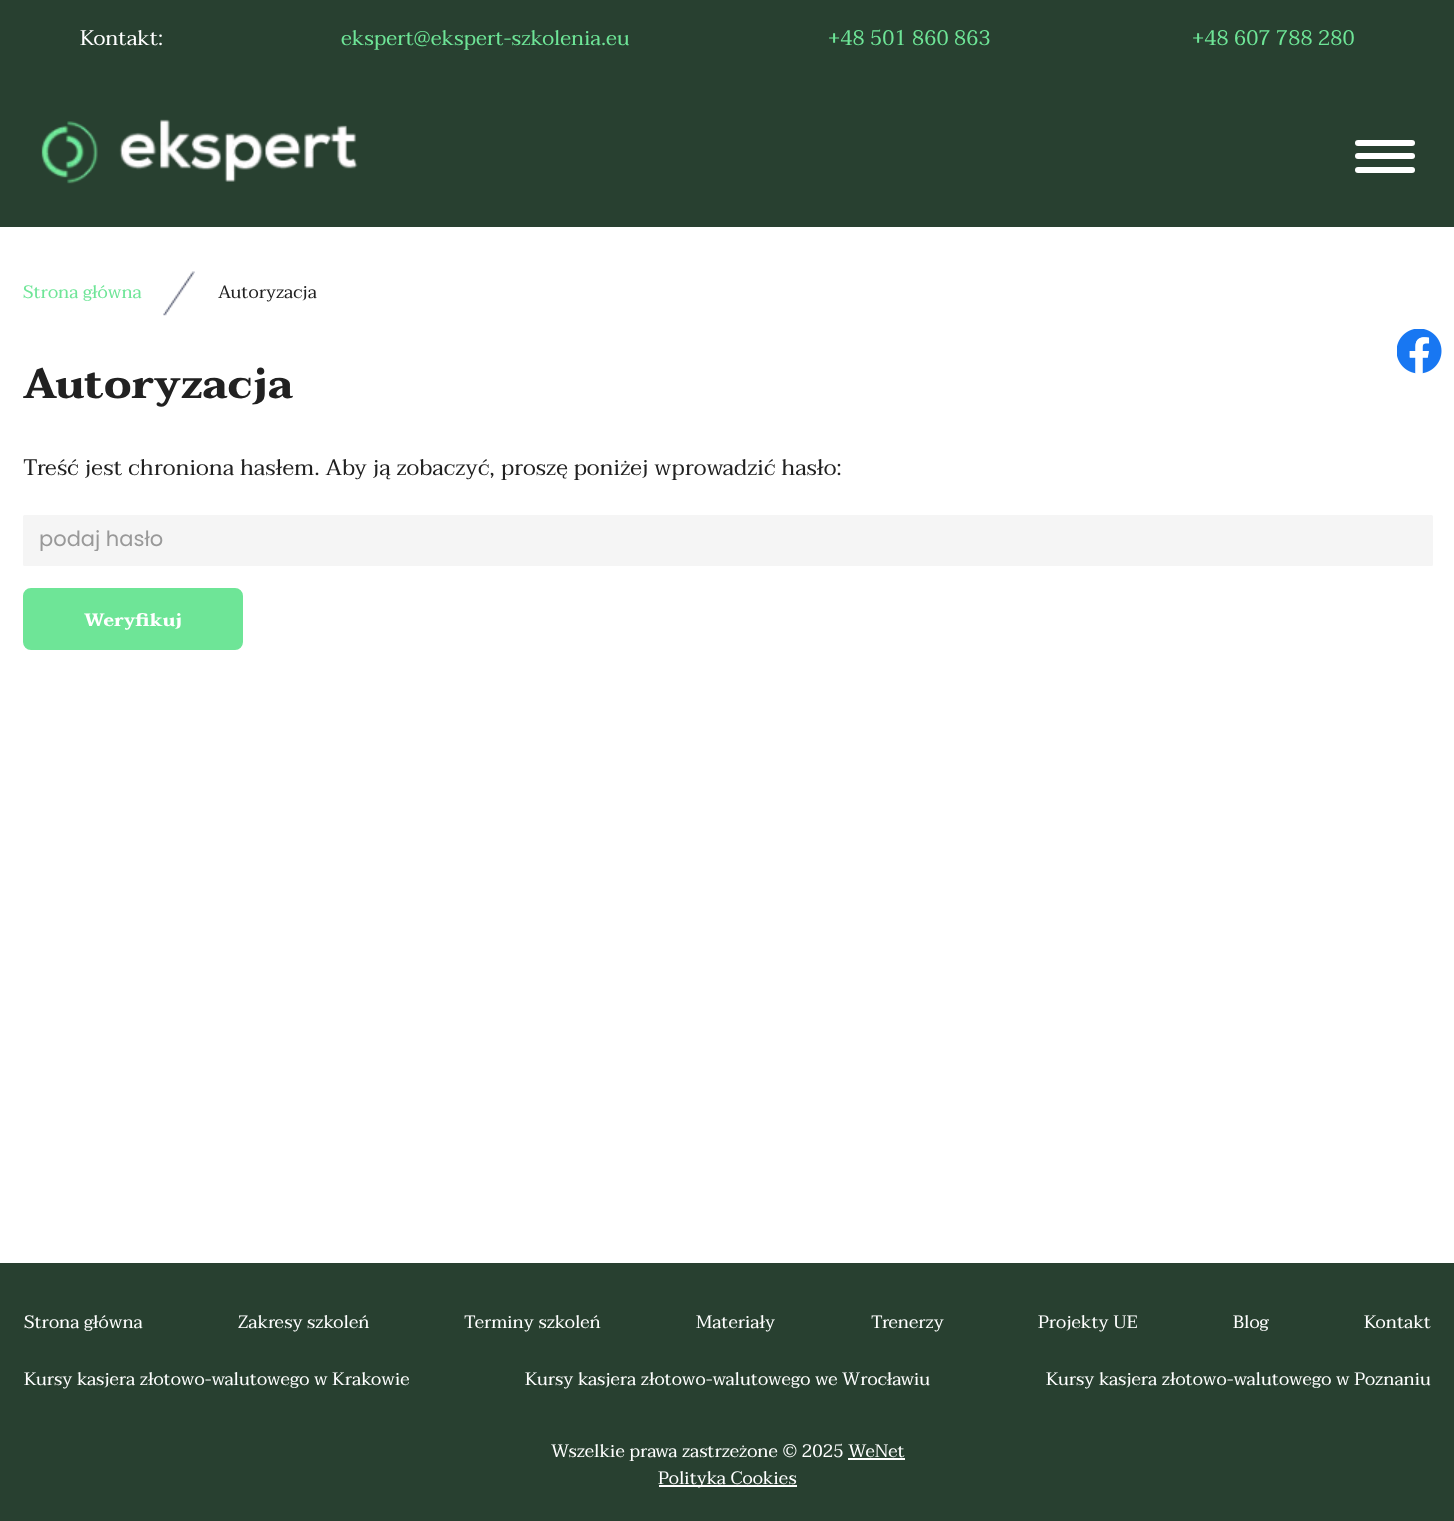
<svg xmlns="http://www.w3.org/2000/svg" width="1454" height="1521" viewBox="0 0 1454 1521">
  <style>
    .t1 { font: 21px Taviraj; fill: #fff; }
    .t2 { font: 21px Taviraj; fill: #6ee597; }
    .t3 { font: 18px Taviraj; fill: #6ee597; }
    .t4 { font: 18px Taviraj; fill: #212121; }
    .t5 { font: bold 42px Taviraj; fill: #212121; }
    .t6 { font: 22.5px Taviraj; fill: #212121; }
    .t7 { font: 21px Poppins; fill: #999; }
    .t8 { font: bold 18px Taviraj; fill: #fff; }
    .t9 { font: 18px Taviraj; fill: #fff; }
  </style>
  <defs>
    <clipPath id="clip1"><rect x="39" y="530" width="1377" height="21"/></clipPath>
  </defs>
  <rect width="100%" height="100%" fill="#fff"/>
  <rect x="0" y="0" width="1454" height="227" fill="#284030"/>
  <text x="80" y="45" class="t1">Kontakt:</text>
  <text x="341" y="45" class="t2">ekspert@ekspert-szkolenia.eu</text>
  <text x="828" y="45" class="t2">+48 501 860 863</text>
  <text x="1192" y="45" class="t2">+48 607 788 280</text>
  <image x="41" y="119" width="317" height="65" href="images/1.png"/>
  <rect x="1355" y="140" width="60" height="6" rx="3" fill="#fff"/>
  <rect x="1355" y="153" width="60" height="6" rx="3" fill="#fff"/>
  <rect x="1355" y="167" width="60" height="6" rx="3" fill="#fff"/>
  <text x="23" y="298" class="t3">Strona główna</text>
  <image x="163" y="271" width="32" height="45" href="images/2.png"/>
  <text x="218" y="298" class="t4">Autoryzacja</text>
  <text x="23" y="398" class="t5">Autoryzacja</text>
  <text x="23" y="475" class="t6">Treść jest chroniona hasłem. Aby ją zobaczyć, proszę poniżej wprowadzić hasło:</text>
  <rect x="23" y="515" width="1410" height="51" rx="1.5" fill="#f5f5f5"/>
  <g clip-path="url(#clip1)">
    <text x="39" y="546" class="t7">podaj hasło</text>
  </g>
  <rect x="24" y="589" width="218" height="60" rx="7" fill="#6ee597" stroke="#6ee597" stroke-width="2"/>
  <text x="84" y="626" class="t8">Weryfikuj</text>
  <image x="1397" y="329" width="45" height="45" href="images/3.png"/>
  <rect x="0" y="1263" width="1454" height="258" fill="#284030"/>
  <text x="24" y="1328" class="t9">Strona główna</text>
  <text x="238" y="1328" class="t9">Zakresy szkoleń</text>
  <text x="464" y="1328" class="t9">Terminy szkoleń</text>
  <text x="696" y="1328" class="t9">Materiały</text>
  <text x="871" y="1328" class="t9">Trenerzy</text>
  <text x="1038" y="1328" class="t9">Projekty UE</text>
  <text x="1233" y="1328" class="t9">Blog</text>
  <text x="1364" y="1328" class="t9">Kontakt</text>
  <text x="24" y="1385" class="t9">Kursy kasjera złotowo-walutowego w Krakowie</text>
  <text x="525" y="1385" class="t9">Kursy kasjera złotowo-walutowego we Wrocławiu</text>
  <text x="1046" y="1385" class="t9">Kursy kasjera złotowo-walutowego w Poznaniu</text>
  <text x="551" y="1457" class="t9">Wszelkie prawa zastrzeżone © 2025 WeNet</text>
  <rect x="848" y="1458" width="57" height="2" fill="#fff"/>
  <rect x="659" y="1485" width="138" height="2" fill="#fff"/>
  <text x="658" y="1484" class="t9">Polityka Cookies</text>
</svg>
